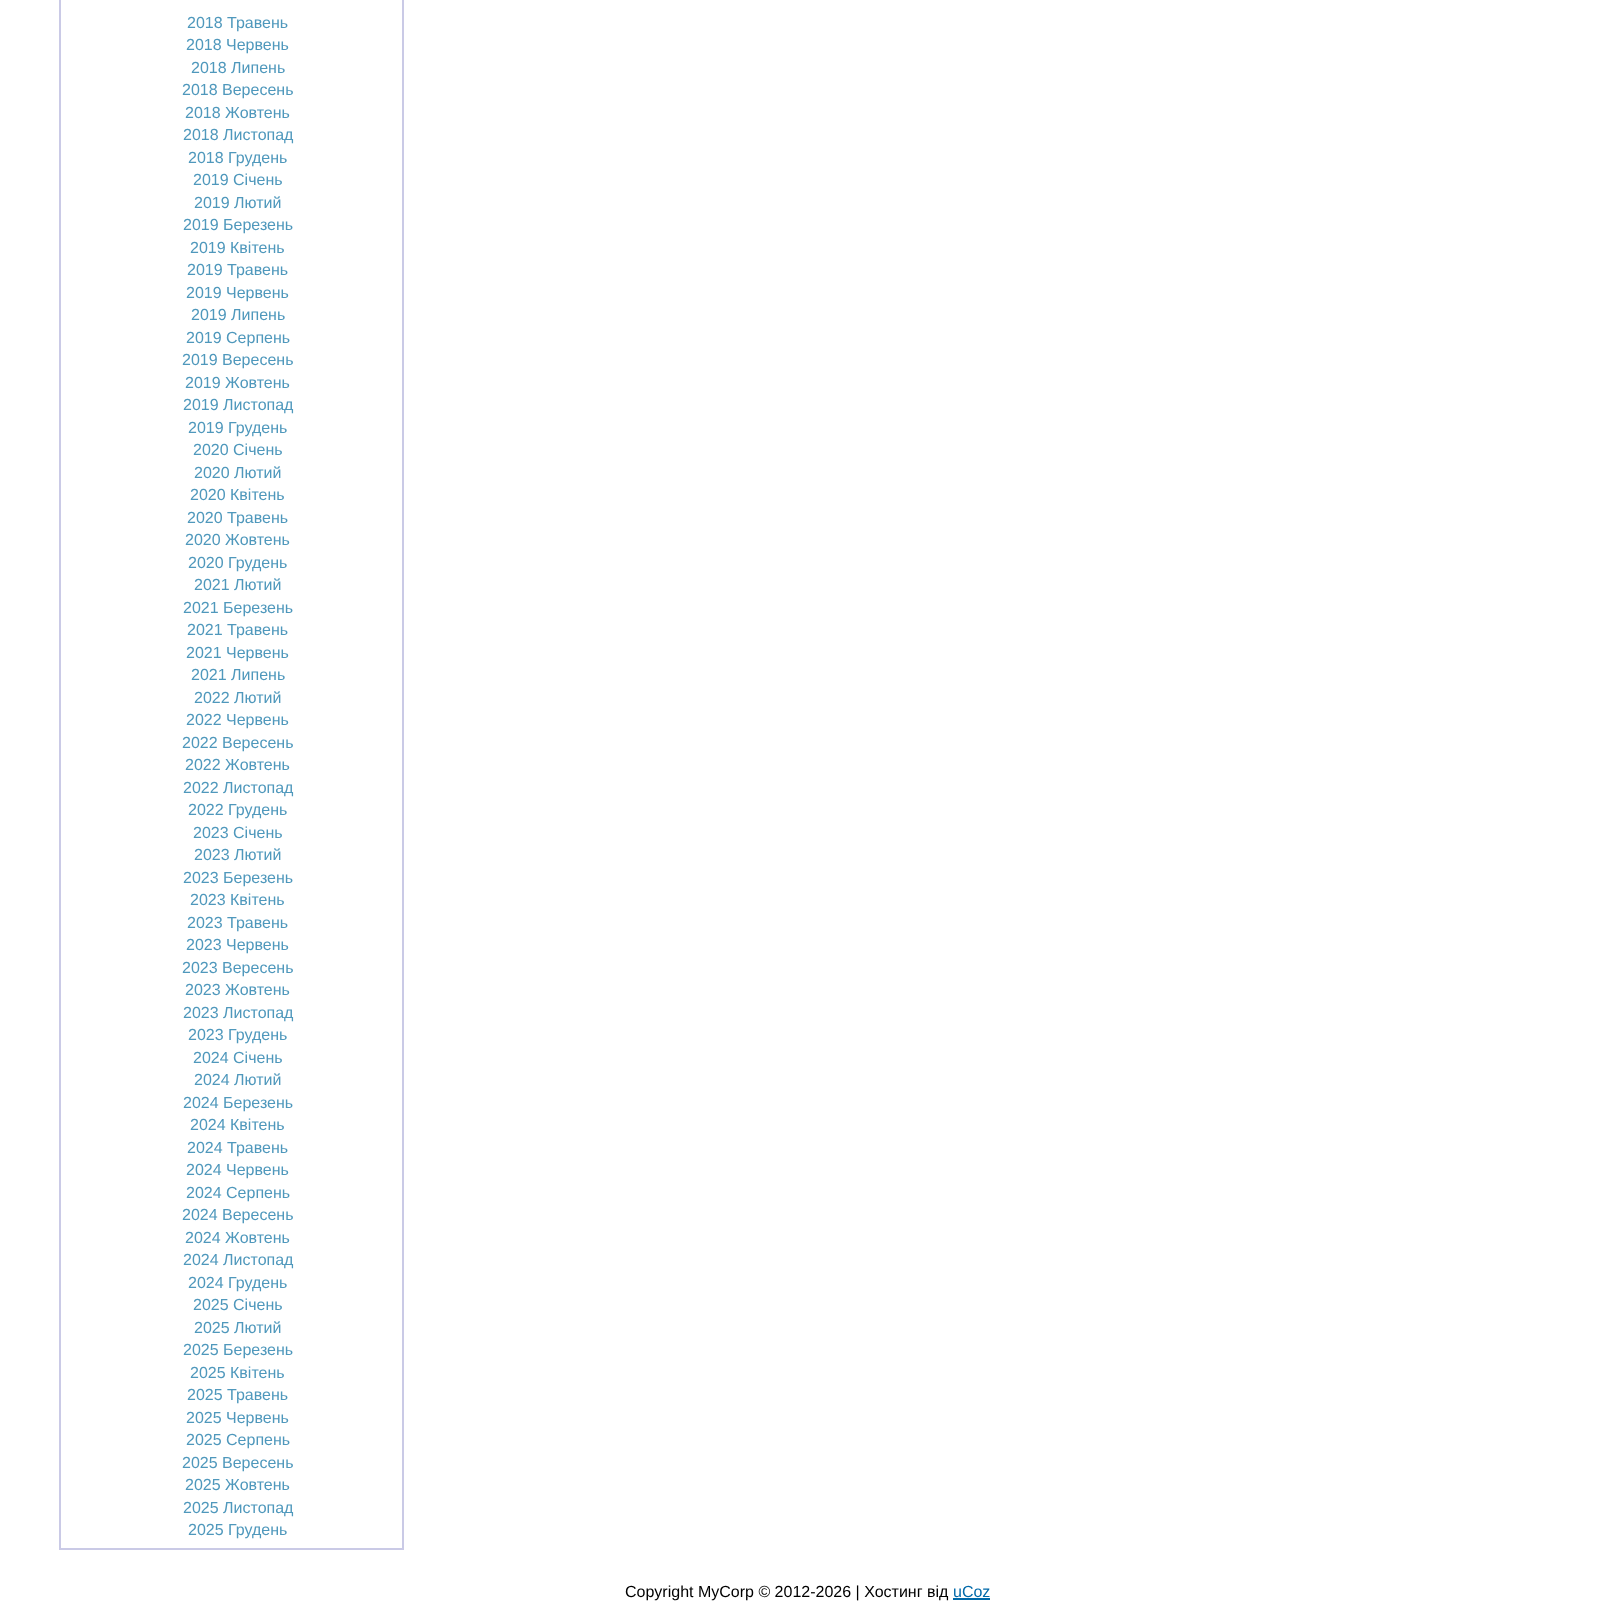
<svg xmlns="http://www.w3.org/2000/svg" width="1615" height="1617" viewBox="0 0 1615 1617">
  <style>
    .t1 { font: 16px Liberation Sans; fill: #4f98bc; }
    .t2 { font: 16px Liberation Sans; fill: #000; }
    .t3 { font: 16px Liberation Sans; fill: #0069a9; }
  </style>
  <rect width="100%" height="100%" fill="#fff"/>
  <rect x="60" y="-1" width="343" height="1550" fill="none" stroke="#cacae6" stroke-width="2"/>
  <text x="187" y="28" class="t1">2018 Травень</text>
  <text x="186" y="50" class="t1">2018 Червень</text>
  <text x="191" y="73" class="t1">2018 Липень</text>
  <text x="182" y="95" class="t1">2018 Вересень</text>
  <text x="185" y="118" class="t1">2018 Жовтень</text>
  <text x="183" y="140" class="t1">2018 Листопад</text>
  <text x="188" y="163" class="t1">2018 Грудень</text>
  <text x="193" y="185" class="t1">2019 Січень</text>
  <text x="194" y="208" class="t1">2019 Лютий</text>
  <text x="183" y="230" class="t1">2019 Березень</text>
  <text x="190" y="253" class="t1">2019 Квітень</text>
  <text x="187" y="275" class="t1">2019 Травень</text>
  <text x="186" y="298" class="t1">2019 Червень</text>
  <text x="191" y="320" class="t1">2019 Липень</text>
  <text x="186" y="343" class="t1">2019 Серпень</text>
  <text x="182" y="365" class="t1">2019 Вересень</text>
  <text x="185" y="388" class="t1">2019 Жовтень</text>
  <text x="183" y="410" class="t1">2019 Листопад</text>
  <text x="188" y="433" class="t1">2019 Грудень</text>
  <text x="193" y="455" class="t1">2020 Січень</text>
  <text x="194" y="478" class="t1">2020 Лютий</text>
  <text x="190" y="500" class="t1">2020 Квітень</text>
  <text x="187" y="523" class="t1">2020 Травень</text>
  <text x="185" y="545" class="t1">2020 Жовтень</text>
  <text x="188" y="568" class="t1">2020 Грудень</text>
  <text x="194" y="590" class="t1">2021 Лютий</text>
  <text x="183" y="613" class="t1">2021 Березень</text>
  <text x="187" y="635" class="t1">2021 Травень</text>
  <text x="186" y="658" class="t1">2021 Червень</text>
  <text x="191" y="680" class="t1">2021 Липень</text>
  <text x="194" y="703" class="t1">2022 Лютий</text>
  <text x="186" y="725" class="t1">2022 Червень</text>
  <text x="182" y="748" class="t1">2022 Вересень</text>
  <text x="185" y="770" class="t1">2022 Жовтень</text>
  <text x="183" y="793" class="t1">2022 Листопад</text>
  <text x="188" y="815" class="t1">2022 Грудень</text>
  <text x="193" y="838" class="t1">2023 Січень</text>
  <text x="194" y="860" class="t1">2023 Лютий</text>
  <text x="183" y="883" class="t1">2023 Березень</text>
  <text x="190" y="905" class="t1">2023 Квітень</text>
  <text x="187" y="928" class="t1">2023 Травень</text>
  <text x="186" y="950" class="t1">2023 Червень</text>
  <text x="182" y="973" class="t1">2023 Вересень</text>
  <text x="185" y="995" class="t1">2023 Жовтень</text>
  <text x="183" y="1018" class="t1">2023 Листопад</text>
  <text x="188" y="1040" class="t1">2023 Грудень</text>
  <text x="193" y="1063" class="t1">2024 Січень</text>
  <text x="194" y="1085" class="t1">2024 Лютий</text>
  <text x="183" y="1108" class="t1">2024 Березень</text>
  <text x="190" y="1130" class="t1">2024 Квітень</text>
  <text x="187" y="1153" class="t1">2024 Травень</text>
  <text x="186" y="1175" class="t1">2024 Червень</text>
  <text x="186" y="1198" class="t1">2024 Серпень</text>
  <text x="182" y="1220" class="t1">2024 Вересень</text>
  <text x="185" y="1243" class="t1">2024 Жовтень</text>
  <text x="183" y="1265" class="t1">2024 Листопад</text>
  <text x="188" y="1288" class="t1">2024 Грудень</text>
  <text x="193" y="1310" class="t1">2025 Січень</text>
  <text x="194" y="1333" class="t1">2025 Лютий</text>
  <text x="183" y="1355" class="t1">2025 Березень</text>
  <text x="190" y="1378" class="t1">2025 Квітень</text>
  <text x="187" y="1400" class="t1">2025 Травень</text>
  <text x="186" y="1423" class="t1">2025 Червень</text>
  <text x="186" y="1445" class="t1">2025 Серпень</text>
  <text x="182" y="1468" class="t1">2025 Вересень</text>
  <text x="185" y="1490" class="t1">2025 Жовтень</text>
  <text x="183" y="1513" class="t1">2025 Листопад</text>
  <text x="188" y="1535" class="t1">2025 Грудень</text>
  <text x="625" y="1597" class="t2">Copyright MyCorp © 2012-2026 | Хостинг від</text>
  <text x="953" y="1597" class="t3">uCoz</text>
  <rect x="953" y="1598" width="37" height="2" fill="#0069a9"/>
</svg>
